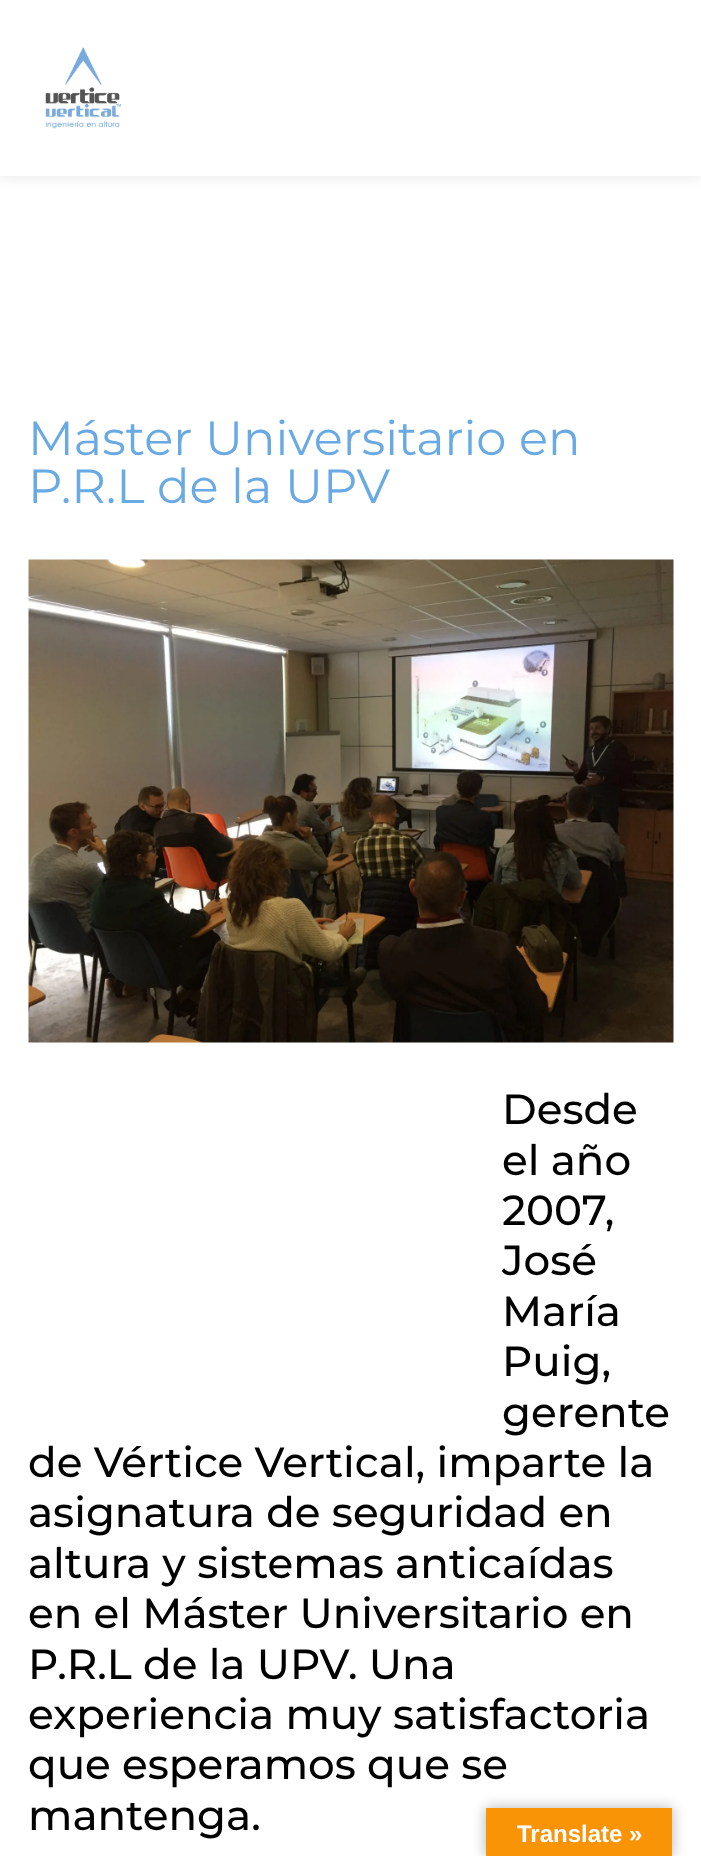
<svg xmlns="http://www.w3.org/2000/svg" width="701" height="1856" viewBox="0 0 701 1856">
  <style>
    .t1 { font: 48px Montserrat; fill: #6aaae4; }
    .t2 { font: 500 42px Montserrat; fill: #000; }
    .t3 { font: bold 24px Liberation Sans; fill: #fff; }
  </style>
  <rect width="100%" height="100%" fill="#fff"/>
  <rect x="0" y="0" width="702" height="176" fill="#0000001a" filter="blur(7.5px)"/>
  <rect x="0" y="0" width="701" height="176" fill="#fff"/>
  <image x="45" y="47" width="77" height="82" href="images/1.png"/>
  <text x="28" y="455" class="t1">Máster Universitario en</text>
  <text x="28" y="503" class="t1">P.R.L de la UPV</text>
  <image x="28" y="559" width="646" height="484" href="images/2.png"/>
  <text x="502" y="1124" class="t2">Desde</text>
  <text x="502" y="1175" class="t2">el año</text>
  <text x="502" y="1225" class="t2">2007,</text>
  <text x="502" y="1275" class="t2">José</text>
  <text x="502" y="1326" class="t2">María</text>
  <text x="502" y="1376" class="t2">Puig,</text>
  <text x="502" y="1427" class="t2">gerente</text>
  <text x="28" y="1477" class="t2">de Vértice Vertical, imparte la</text>
  <text x="28" y="1527" class="t2">asignatura de seguridad en</text>
  <text x="28" y="1578" class="t2">altura y sistemas anticaídas</text>
  <text x="28" y="1628" class="t2">en el Máster Universitario en</text>
  <text x="28" y="1679" class="t2">P.R.L de la UPV. Una</text>
  <text x="28" y="1729" class="t2">experiencia muy satisfactoria</text>
  <text x="28" y="1779" class="t2">que esperamos que se</text>
  <text x="28" y="1830" class="t2">mantenga.</text>
  <rect x="486" y="1808" width="186" height="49" fill="#0000004d" filter="blur(7px)"/>
  <rect x="486" y="1808" width="186" height="48" fill="#f89406"/>
  <text x="517" y="1842" class="t3">Translate »</text>
</svg>
